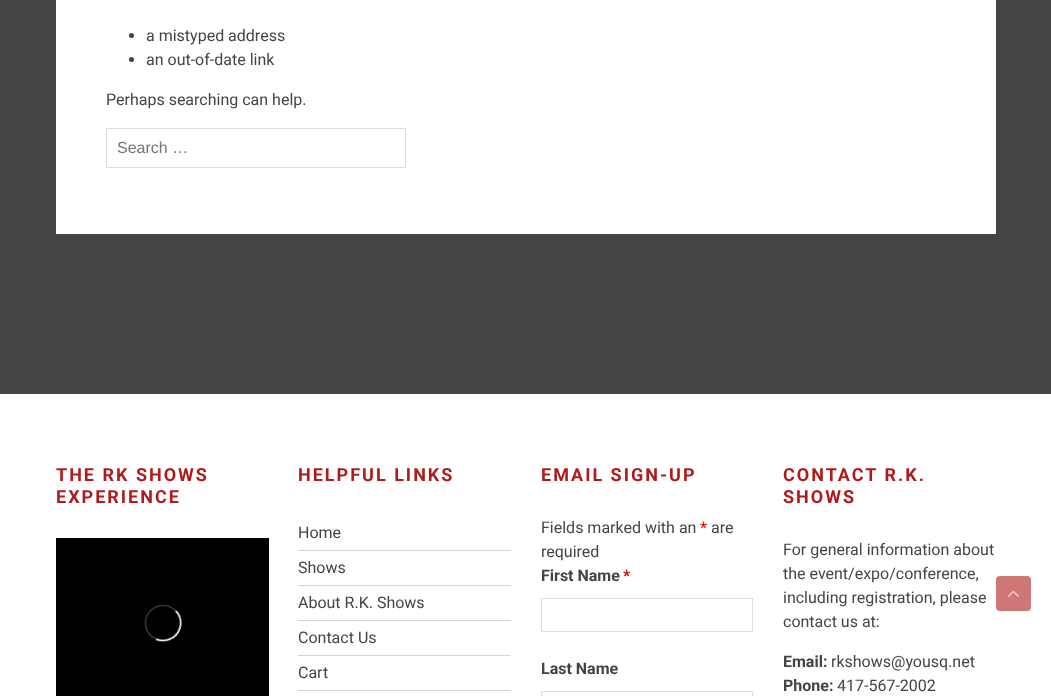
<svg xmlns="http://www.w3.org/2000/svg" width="1051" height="696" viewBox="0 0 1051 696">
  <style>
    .t1 { font: 16px Roboto; fill: #444; }
    .t2 { font: 16px Liberation Sans; fill: #757575; }
    .t3 { font: bold 18px Roboto; letter-spacing: 2px; fill: #af1b1b; }
    .t4 { font: 16px Roboto; fill: #e80000; }
    .t5 { font: bold 16px Roboto; fill: #444; }
    .t6 { font: bold 16px Roboto; fill: #e80000; }
  </style>
  <rect width="100%" height="100%" fill="#444"/>
  <rect x="56" y="0" width="940" height="234" fill="#fff"/>
  <circle cx="131.5" cy="35.5" r="2.5" fill="#444"/>
  <text x="146" y="41" class="t1">a mistyped address</text>
  <circle cx="131.5" cy="59.5" r="2.5" fill="#444"/>
  <text x="146" y="65" class="t1">an out-of-date link</text>
  <text x="106" y="105" class="t1">Perhaps searching can help.</text>
  <rect x="106.5" y="128.5" width="299" height="39" fill="none" stroke="#ddd"/>
  <text x="117" y="153" class="t2">Search …</text>
  <rect x="0" y="394" width="1051" height="302" fill="#fff"/>
  <text x="56" y="481" class="t3">THE RK SHOWS</text>
  <text x="56" y="503" class="t3">EXPERIENCE</text>
  <image x="56" y="538" width="213" height="158" href="images/1.png"/>
  <text x="298" y="481" class="t3">HELPFUL LINKS</text>
  <rect x="298" y="550" width="213" height="1" fill="#d1d3d4"/>
  <text x="298" y="538" class="t1">Home</text>
  <rect x="298" y="585" width="213" height="1" fill="#d1d3d4"/>
  <text x="298" y="573" class="t1">Shows</text>
  <rect x="298" y="620" width="213" height="1" fill="#d1d3d4"/>
  <text x="298" y="608" class="t1">About R.K. Shows</text>
  <rect x="298" y="655" width="213" height="1" fill="#d1d3d4"/>
  <text x="298" y="643" class="t1">Contact Us</text>
  <rect x="298" y="690" width="213" height="1" fill="#d1d3d4"/>
  <text x="298" y="678" class="t1">Cart</text>
  <text x="541" y="481" class="t3">EMAIL SIGN-UP</text>
  <text x="541" y="533" class="t1">Fields marked with an</text>
  <text x="700" y="533" class="t4">*</text>
  <text x="711" y="533" class="t1">are</text>
  <text x="541" y="557" class="t1">required</text>
  <text x="541" y="581" class="t5">First Name</text>
  <text x="623" y="581" class="t6">*</text>
  <rect x="541.5" y="598.5" width="211" height="33" fill="none" stroke="#ddd"/>
  <text x="541" y="674" class="t5">Last Name</text>
  <rect x="541.5" y="691.5" width="211" height="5" fill="none" stroke="#ddd"/>
  <text x="783" y="481" class="t3">CONTACT R.K.</text>
  <text x="783" y="503" class="t3">SHOWS</text>
  <text x="783" y="555" class="t1">For general information about</text>
  <text x="783" y="579" class="t1">the event/expo/conference,</text>
  <text x="783" y="603" class="t1">including registration, please</text>
  <text x="783" y="627" class="t1">contact us at:</text>
  <text x="783" y="667" class="t5">Email:</text>
  <text x="831" y="667" class="t1">rkshows@yousq.net</text>
  <text x="783" y="691" class="t5">Phone:</text>
  <text x="837" y="691" class="t1">417-567-2002</text>
  <rect x="996" y="576" width="35" height="35" rx="4" fill="#cf7676"/>
  <image x="1008" y="590" width="11" height="7" href="images/2.png"/>
</svg>
